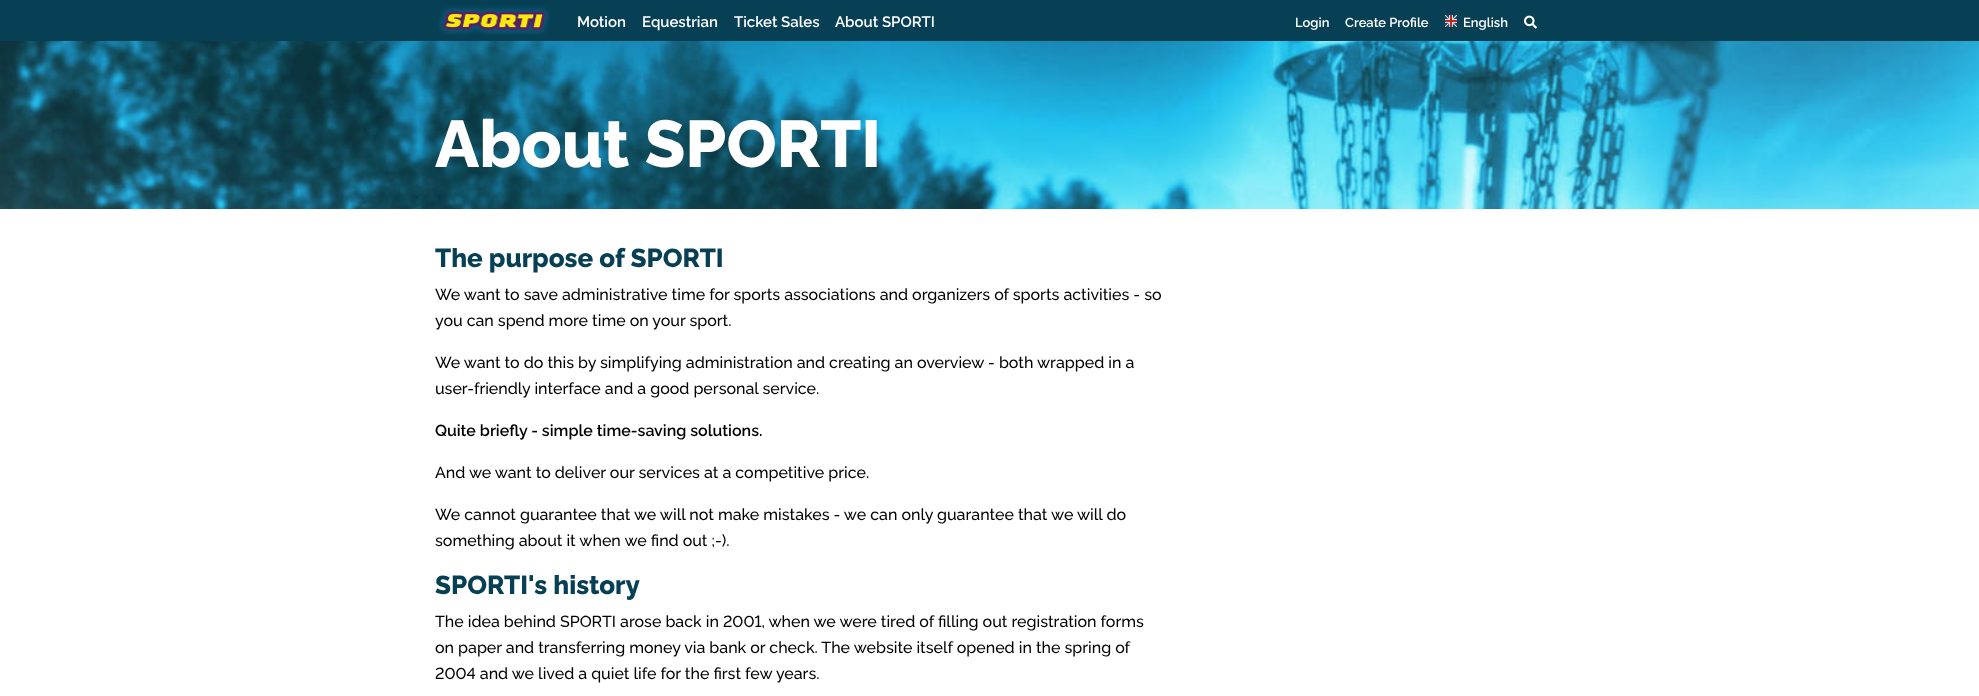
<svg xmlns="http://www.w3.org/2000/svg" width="1979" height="696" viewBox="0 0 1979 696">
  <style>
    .t1 { font: 600 15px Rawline; fill: #fff; }
    .t2 { font: 600 13px Rawline; fill: #fff; }
    .t3 { font: 800 66px Rawline; fill: #fff; }
    .t4 { font: 800 26px Rawline; fill: #074055; }
    .t5 { font: 500 16px Rawline; fill: #000; }
    .t6 { font: 600 16px Rawline; fill: #000; }
  </style>
  <rect width="100%" height="100%" fill="#fff"/>
  <image x="0" y="41" width="1979" height="168" href="images/1.png"/>
  <rect x="0" y="0" width="1979" height="41" fill="#074055"/>
  <image x="438" y="6" width="112" height="29" href="images/2.png"/>
  <text x="577" y="27" class="t1">Motion</text>
  <text x="642" y="27" class="t1">Equestrian</text>
  <text x="734" y="27" class="t1">Ticket Sales</text>
  <text x="835" y="27" class="t1">About SPORTI</text>
  <text x="1295" y="27" class="t2">Login</text>
  <text x="1345" y="27" class="t2">Create Profile</text>
  <image x="1445" y="15" width="12" height="12" href="images/3.png"/>
  <text x="1463" y="27" class="t2">English</text>
  <image x="1524" y="15" width="13" height="14" href="images/4.png"/>
  <text x="435" y="167" class="t3">About SPORTI</text>
  <text x="435" y="267" class="t4">The purpose of SPORTI</text>
  <text x="435" y="300" class="t5">We want to save administrative time for sports associations and organizers of sports activities - so</text>
  <text x="435" y="326" class="t5">you can spend more time on your sport.</text>
  <text x="435" y="368" class="t5">We want to do this by simplifying administration and creating an overview - both wrapped in a</text>
  <text x="435" y="394" class="t5">user-friendly interface and a good personal service.</text>
  <text x="435" y="436" class="t6">Quite briefly - simple time-saving solutions.</text>
  <text x="435" y="478" class="t5">And we want to deliver our services at a competitive price.</text>
  <text x="435" y="520" class="t5">We cannot guarantee that we will not make mistakes - we can only guarantee that we will do</text>
  <text x="435" y="546" class="t5">something about it when we find out ;-).</text>
  <text x="435" y="594" class="t4">SPORTI's history</text>
  <text x="435" y="627" class="t5">The idea behind SPORTI arose back in 2001, when we were tired of filling out registration forms</text>
  <text x="435" y="653" class="t5">on paper and transferring money via bank or check. The website itself opened in the spring of</text>
  <text x="435" y="679" class="t5">2004 and we lived a quiet life for the first few years.</text>
</svg>
